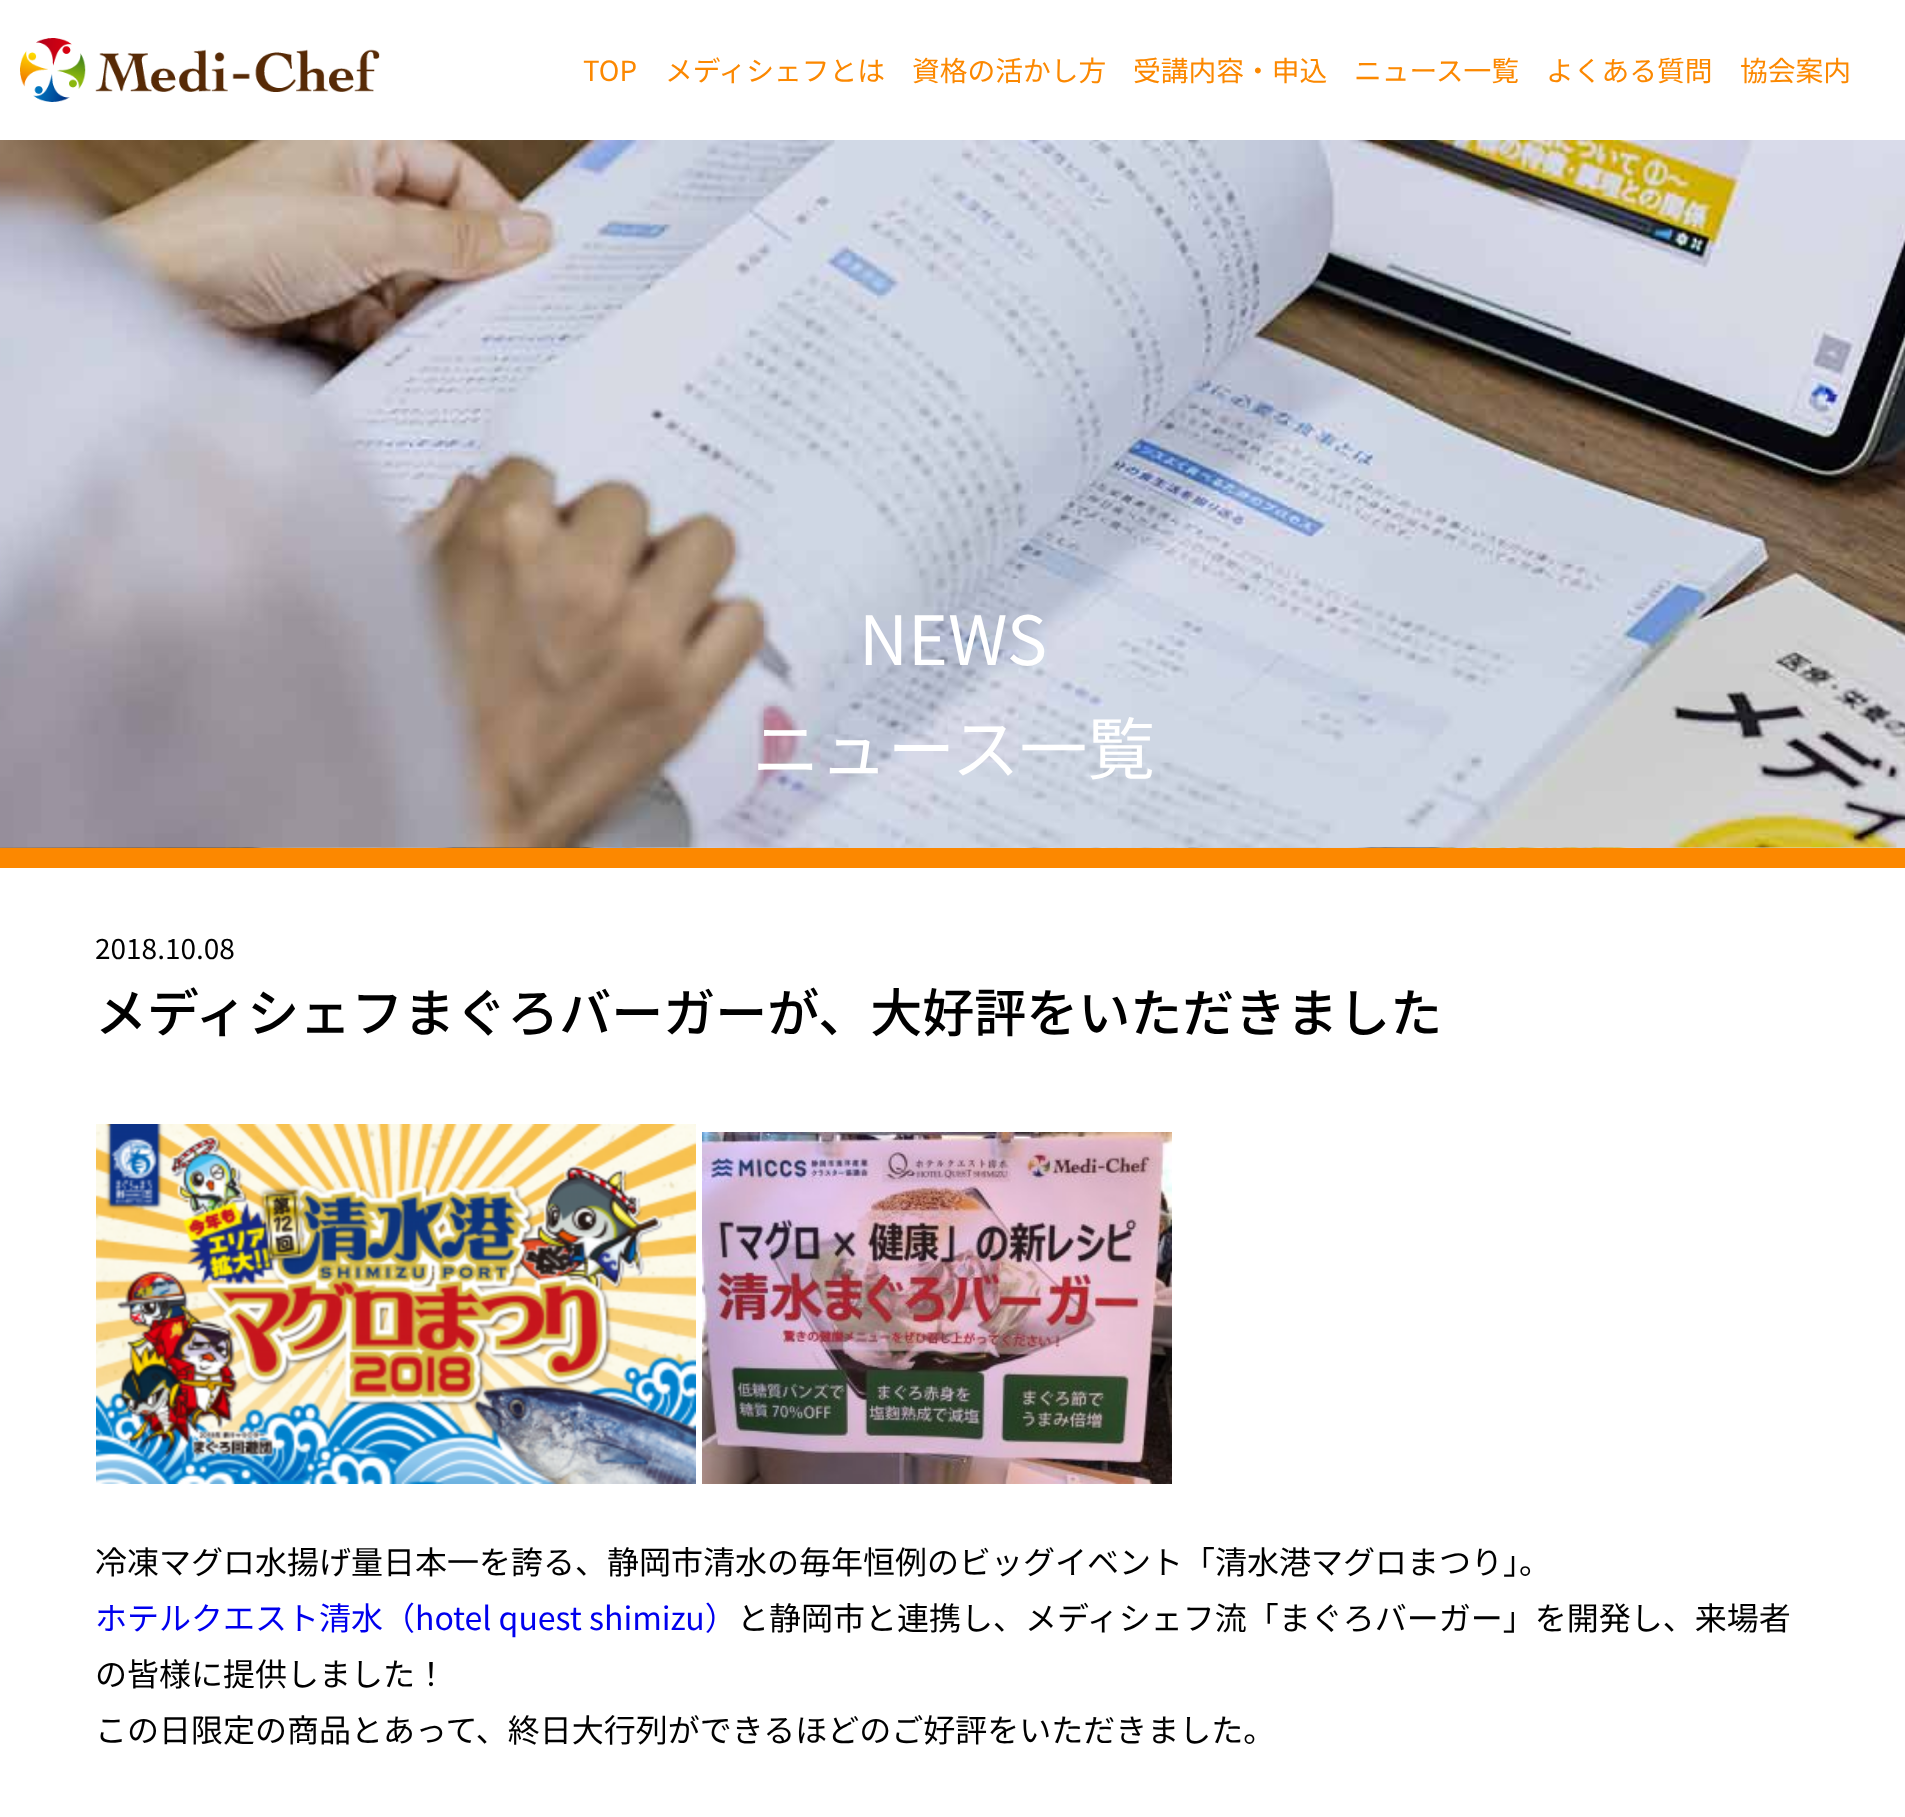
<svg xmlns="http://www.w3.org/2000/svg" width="1905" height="1817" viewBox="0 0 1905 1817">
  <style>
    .t1 { font: 27.75px Noto Sans JP; fill: #fc8800; }
    .t2 { font: 67.75px Noto Sans JP; fill: #fff; }
    .t3 { font: 28px Noto Sans JP; fill: #000; }
    .t4 { font: 500 52px Noto Sans JP; fill: #000; }
    .t5 { font: 32px Noto Sans JP; fill: #000; }
    .t6 { font: 32px Noto Sans JP; fill: #00e; }
  </style>
  <rect width="100%" height="100%" fill="#fff"/>
  <image x="20" y="38" width="360" height="64" href="images/1.png"/>
  <text x="583" y="81" class="t1">TOP</text>
  <text x="665" y="81" class="t1">メディシェフとは</text>
  <text x="912" y="81" class="t1">資格の活かし方</text>
  <text x="1133" y="81" class="t1">受講内容・申込</text>
  <text x="1354" y="81" class="t1">ニュース一覧</text>
  <text x="1546" y="81" class="t1">よくある質問</text>
  <text x="1740" y="81" class="t1">協会案内</text>
  <image x="0" y="140" width="1905" height="708" href="images/2.png"/>
  <rect x="0" y="848" width="1905" height="20" fill="#fc8800"/>
  <text x="859" y="665" class="t2">NEWS</text>
  <text x="752" y="774" class="t2">ニュース一覧</text>
  <text x="95" y="959" class="t3">2018.10.08</text>
  <text x="95" y="1032" class="t4">メディシェフまぐろバーガーが、大好評をいただきました</text>
  <image x="96" y="1124" width="600" height="360" href="images/3.png"/>
  <image x="702" y="1132" width="470" height="352" href="images/4.png"/>
  <text x="95" y="1574" class="t5">冷凍マグロ水揚げ量日本一を誇る、静岡市清水の毎年恒例のビッグイベント「清水港マグロまつり」。</text>
  <text x="95" y="1630" class="t6">ホテルクエスト清水（hotel quest shimizu）</text>
  <text x="737" y="1630" class="t5">と静岡市と連携し、メディシェフ流「まぐろバーガー」を開発し、来場者</text>
  <text x="95" y="1686" class="t5">の皆様に提供しました！</text>
  <text x="95" y="1742" class="t5">この日限定の商品とあって、終日大行列ができるほどのご好評をいただきました。</text>
</svg>
